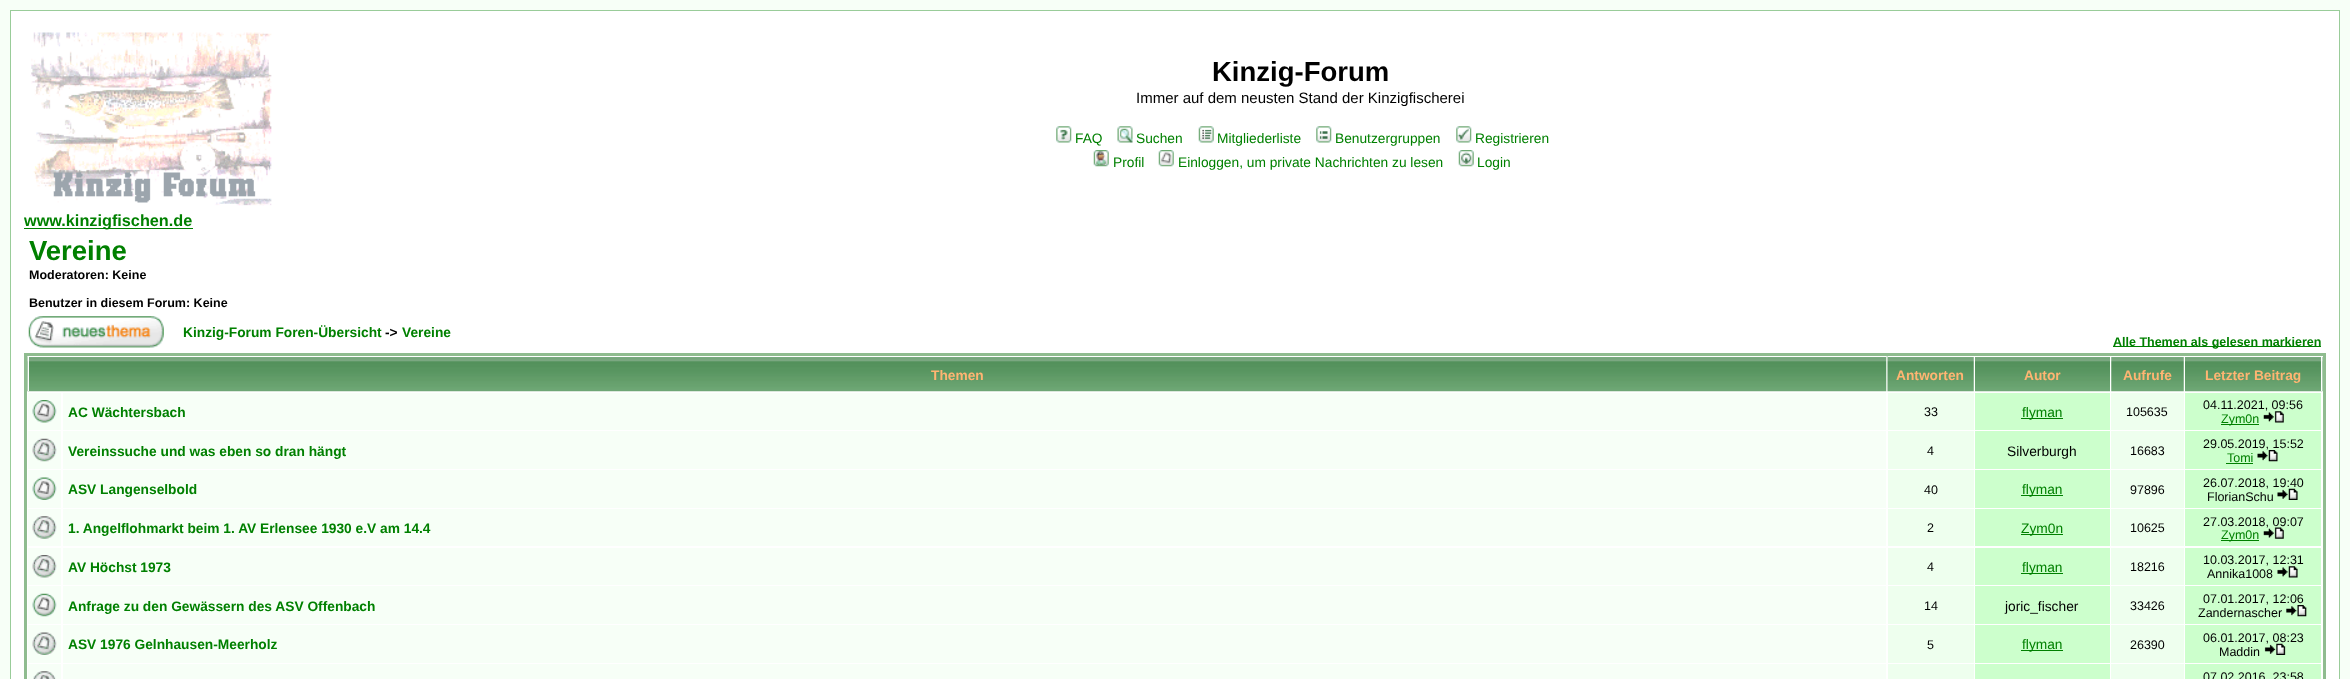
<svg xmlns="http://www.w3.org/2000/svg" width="2350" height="679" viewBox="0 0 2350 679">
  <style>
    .t1 { font: bold 27.5px Liberation Sans; fill: #000; }
    .t2 { font: 15px Liberation Sans; fill: #000; }
    .t3 { font: 13.75px Liberation Sans; fill: #008000; }
    .t4 { font: bold 16.25px Liberation Sans; fill: #008000; }
    .t5 { font: bold 27.5px Liberation Sans; fill: #008000; }
    .t6 { font: bold 12.5px Liberation Sans; fill: #000; }
    .t7 { font: bold 13.75px Liberation Sans; fill: #008000; }
    .t8 { font: bold 13.75px Liberation Sans; fill: #000; }
    .t9 { font: bold 12.5px Liberation Sans; fill: #008000; }
    .t10 { font: bold 13.75px Liberation Sans; fill: #ffb572; }
    .t11 { font: 12.5px Liberation Sans; fill: #000; }
    .t12 { font: 12.5px Liberation Sans; fill: #008000; }
    .t13 { font: 13.75px Liberation Sans; fill: #000; }
  </style>
  <rect width="100%" height="100%" fill="#f7fff7"/>
  <rect x="10.5" y="10.5" width="2329" height="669" fill="#fff" stroke="#9c9"/>
  <image x="30" y="32" width="242" height="174" href="images/1.png"/>
  <text x="1212" y="81" class="t1">Kinzig-Forum</text>
  <text x="1136" y="103" class="t2">Immer auf dem neusten Stand der Kinzigfischerei</text>
  <image x="1056" y="126" width="16" height="17" href="images/2.png"/>
  <text x="1075" y="143" class="t3">FAQ</text>
  <image x="1117" y="126" width="16" height="17" href="images/3.png"/>
  <text x="1136" y="143" class="t3">Suchen</text>
  <image x="1198" y="126" width="16" height="17" href="images/4.png"/>
  <text x="1217" y="143" class="t3">Mitgliederliste</text>
  <image x="1316" y="126" width="16" height="17" href="images/5.png"/>
  <text x="1335" y="143" class="t3">Benutzergruppen</text>
  <image x="1456" y="126" width="16" height="17" href="images/6.png"/>
  <text x="1475" y="143" class="t3">Registrieren</text>
  <image x="1093" y="150" width="16" height="17" href="images/7.png"/>
  <text x="1113" y="167" class="t3">Profil</text>
  <image x="1158" y="150" width="16" height="17" href="images/8.png"/>
  <text x="1178" y="167" class="t3">Einloggen, um private Nachrichten zu lesen</text>
  <image x="1458" y="150" width="16" height="17" href="images/9.png"/>
  <text x="1477" y="167" class="t3">Login</text>
  <rect x="24" y="228" width="169" height="1" fill="#008000"/>
  <text x="24" y="226" class="t4">www.kinzigfischen.de</text>
  <text x="29" y="260" class="t5">Vereine</text>
  <text x="29" y="279" class="t6">Moderatoren: Keine</text>
  <text x="29" y="307" class="t6">Benutzer in diesem Forum: Keine</text>
  <image x="28" y="316" width="136" height="32" href="images/10.png"/>
  <text x="183" y="337" class="t7">Kinzig-Forum Foren-Übersicht</text>
  <text x="385" y="337" class="t8">-&gt;</text>
  <text x="402" y="337" class="t7">Vereine</text>
  <rect x="2113" y="346" width="208" height="1" fill="#008000"/>
  <text x="2113" y="346" class="t9">Alle Themen als gelesen markieren</text>
  <rect x="25.5" y="354.5" width="2299" height="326" fill="none" stroke="#8fbc8f" stroke-width="3"/>
  <image x="27" y="356" width="1860" height="36" href="images/11.png"/>
  <rect x="28" y="356" width="1858" height="1" fill="#fff"/>
  <rect x="28" y="356" width="1" height="35" fill="#fff"/>
  <text x="931" y="380" class="t10">Themen</text>
  <image x="1887" y="356" width="87" height="36" href="images/12.png"/>
  <rect x="1888" y="356" width="86" height="1" fill="#fff"/>
  <text x="1896" y="380" class="t10">Antworten</text>
  <image x="1975" y="357" width="135" height="35" href="images/13.png"/>
  <text x="2024" y="380" class="t10">Autor</text>
  <image x="2111" y="357" width="73" height="35" href="images/14.png"/>
  <text x="2123" y="380" class="t10">Aufrufe</text>
  <image x="2185" y="357" width="138" height="35" href="images/15.png"/>
  <rect x="2321" y="356" width="1" height="35" fill="#fff"/>
  <text x="2205" y="380" class="t10">Letzter Beitrag</text>
  <rect x="28" y="393" width="33" height="37" fill="#f7fff7"/>
  <image x="32" y="400" width="25" height="23" href="images/16.png"/>
  <rect x="63" y="393" width="1823" height="37" fill="#f7fff7"/>
  <text x="68" y="417" class="t7">AC Wächtersbach</text>
  <rect x="1888" y="393" width="86" height="37" fill="#efe"/>
  <text x="1924" y="416" class="t11">33</text>
  <rect x="1975" y="393" width="135" height="37" fill="#cfc"/>
  <rect x="2021" y="418" width="42" height="1" fill="#008000"/>
  <text x="2022" y="417" class="t3">flyman</text>
  <rect x="2111" y="393" width="73" height="37" fill="#efe"/>
  <text x="2126" y="416" class="t11">105635</text>
  <rect x="2185" y="393" width="136" height="37" fill="#cfc"/>
  <text x="2203" y="409" class="t11">04.11.2021, 09:56</text>
  <rect x="2221" y="424" width="38" height="1" fill="#008000"/>
  <text x="2221" y="423" class="t12">Zym0n</text>
  <image x="2263" y="411" width="21" height="12" href="images/17.png"/>
  <rect x="28" y="431" width="33" height="38" fill="#f7fff7"/>
  <image x="32" y="438" width="25" height="24" href="images/18.png"/>
  <rect x="63" y="431" width="1823" height="38" fill="#f7fff7"/>
  <text x="68" y="456" class="t7">Vereinssuche und was eben so dran hängt</text>
  <rect x="1888" y="431" width="86" height="38" fill="#efe"/>
  <text x="1927" y="455" class="t11">4</text>
  <rect x="1975" y="431" width="135" height="38" fill="#cfc"/>
  <text x="2007" y="456" class="t13">Silverburgh</text>
  <rect x="2111" y="431" width="73" height="38" fill="#efe"/>
  <text x="2130" y="455" class="t11">16683</text>
  <rect x="2185" y="431" width="136" height="38" fill="#cfc"/>
  <text x="2203" y="448" class="t11">29.05.2019, 15:52</text>
  <text x="2227" y="462" class="t12">Tomi</text>
  <rect x="2226" y="463" width="27" height="1" fill="#008000"/>
  <image x="2257" y="450" width="21" height="12" href="images/19.png"/>
  <rect x="28" y="470" width="33" height="38" fill="#f7fff7"/>
  <image x="32" y="477" width="25" height="23" href="images/20.png"/>
  <rect x="63" y="470" width="1823" height="38" fill="#f7fff7"/>
  <text x="68" y="494" class="t7">ASV Langenselbold</text>
  <rect x="1888" y="470" width="86" height="38" fill="#efe"/>
  <text x="1924" y="494" class="t11">40</text>
  <rect x="1975" y="470" width="135" height="38" fill="#cfc"/>
  <rect x="2021" y="495" width="42" height="1" fill="#008000"/>
  <text x="2022" y="494" class="t3">flyman</text>
  <rect x="2111" y="470" width="73" height="38" fill="#efe"/>
  <text x="2130" y="494" class="t11">97896</text>
  <rect x="2185" y="470" width="136" height="38" fill="#cfc"/>
  <text x="2203" y="487" class="t11">26.07.2018, 19:40</text>
  <text x="2207" y="501" class="t11">FlorianSchu</text>
  <image x="2277" y="488" width="21" height="12" href="images/21.png"/>
  <rect x="28" y="509" width="33" height="37" fill="#f7fff7"/>
  <image x="32" y="516" width="25" height="23" href="images/22.png"/>
  <rect x="63" y="509" width="1823" height="37" fill="#f7fff7"/>
  <text x="68" y="533" class="t7">1. Angelflohmarkt beim 1. AV Erlensee 1930 e.V am 14.4</text>
  <rect x="1888" y="509" width="86" height="37" fill="#efe"/>
  <text x="1927" y="532" class="t11">2</text>
  <rect x="1975" y="509" width="135" height="37" fill="#cfc"/>
  <rect x="2021" y="534" width="42" height="1" fill="#008000"/>
  <text x="2021" y="533" class="t3">Zym0n</text>
  <rect x="2111" y="509" width="73" height="37" fill="#efe"/>
  <text x="2130" y="532" class="t11">10625</text>
  <rect x="2185" y="509" width="136" height="37" fill="#cfc"/>
  <text x="2203" y="526" class="t11">27.03.2018, 09:07</text>
  <rect x="2221" y="540" width="38" height="1" fill="#008000"/>
  <text x="2221" y="539" class="t12">Zym0n</text>
  <image x="2263" y="527" width="21" height="12" href="images/23.png"/>
  <rect x="28" y="548" width="33" height="37" fill="#f7fff7"/>
  <image x="32" y="555" width="25" height="23" href="images/24.png"/>
  <rect x="63" y="548" width="1823" height="37" fill="#f7fff7"/>
  <text x="68" y="572" class="t7">AV Höchst 1973</text>
  <rect x="1888" y="548" width="86" height="37" fill="#efe"/>
  <text x="1927" y="571" class="t11">4</text>
  <rect x="1975" y="548" width="135" height="37" fill="#cfc"/>
  <rect x="2021" y="573" width="42" height="1" fill="#008000"/>
  <text x="2022" y="572" class="t3">flyman</text>
  <rect x="2111" y="548" width="73" height="37" fill="#efe"/>
  <text x="2130" y="571" class="t11">18216</text>
  <rect x="2185" y="548" width="136" height="37" fill="#cfc"/>
  <text x="2203" y="564" class="t11">10.03.2017, 12:31</text>
  <text x="2207" y="578" class="t11">Annika1008</text>
  <image x="2277" y="566" width="21" height="12" href="images/25.png"/>
  <rect x="28" y="586" width="33" height="38" fill="#f7fff7"/>
  <image x="32" y="593" width="25" height="24" href="images/26.png"/>
  <rect x="63" y="586" width="1823" height="38" fill="#f7fff7"/>
  <text x="68" y="611" class="t7">Anfrage zu den Gewässern des ASV Offenbach</text>
  <rect x="1888" y="586" width="86" height="38" fill="#efe"/>
  <text x="1924" y="610" class="t11">14</text>
  <rect x="1975" y="586" width="135" height="38" fill="#cfc"/>
  <text x="2005" y="611" class="t13">joric_fischer</text>
  <rect x="2111" y="586" width="73" height="38" fill="#efe"/>
  <text x="2130" y="610" class="t11">33426</text>
  <rect x="2185" y="586" width="136" height="38" fill="#cfc"/>
  <text x="2203" y="603" class="t11">07.01.2017, 12:06</text>
  <text x="2198" y="617" class="t11">Zandernascher</text>
  <image x="2286" y="605" width="21" height="12" href="images/27.png"/>
  <rect x="28" y="625" width="33" height="38" fill="#f7fff7"/>
  <image x="32" y="632" width="25" height="23" href="images/28.png"/>
  <rect x="63" y="625" width="1823" height="38" fill="#f7fff7"/>
  <text x="68" y="649" class="t7">ASV 1976 Gelnhausen-Meerholz</text>
  <rect x="1888" y="625" width="86" height="38" fill="#efe"/>
  <text x="1927" y="649" class="t11">5</text>
  <rect x="1975" y="625" width="135" height="38" fill="#cfc"/>
  <rect x="2021" y="650" width="42" height="1" fill="#008000"/>
  <text x="2022" y="649" class="t3">flyman</text>
  <rect x="2111" y="625" width="73" height="38" fill="#efe"/>
  <text x="2130" y="649" class="t11">26390</text>
  <rect x="2185" y="625" width="136" height="38" fill="#cfc"/>
  <text x="2203" y="642" class="t11">06.01.2017, 08:23</text>
  <text x="2219" y="656" class="t11">Maddin</text>
  <image x="2264" y="643" width="22" height="12" href="images/29.png"/>
  <rect x="28" y="664" width="33" height="15" fill="#f7fff7"/>
  <image x="33" y="671" width="23" height="8" href="images/30.png"/>
  <rect x="63" y="664" width="1823" height="15" fill="#f7fff7"/>
  <rect x="1888" y="664" width="86" height="15" fill="#efe"/>
  <rect x="1975" y="664" width="135" height="15" fill="#cfc"/>
  <rect x="2111" y="664" width="73" height="15" fill="#efe"/>
  <rect x="2185" y="664" width="136" height="15" fill="#cfc"/>
  <text x="2203" y="681" class="t11">07.02.2016, 23:58</text>
</svg>
